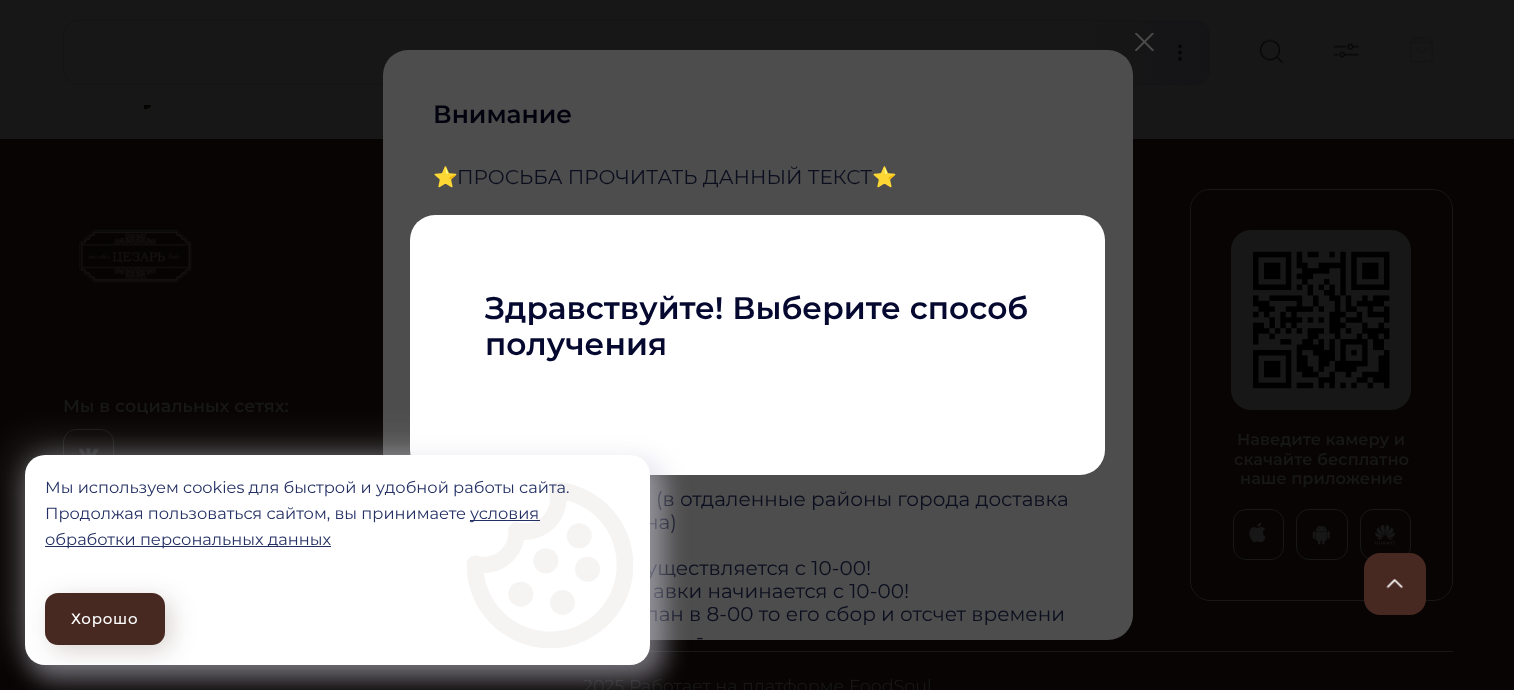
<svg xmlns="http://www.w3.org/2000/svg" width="1514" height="690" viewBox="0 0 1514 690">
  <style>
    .t1 { font: 600 25px Montserrat; fill: #02020e; }
    .t2 { font: 20px Noto Color Emoji; fill: #0b0e1e; }
    .t3 { font: 20px Montserrat; fill: #0b0e1e; }
    .t4 { font: 600 31.25px Montserrat; fill: #05082f; }
    .t5 { font: 600 17.5px Montserrat; fill: #171717; }
    .t6 { font: 600 16.25px Montserrat; fill: #171717; }
    .t7 { font: 17.5px Montserrat; fill: #171717; }
    .t8 { font: 16.25px Montserrat; fill: #243064; }
    .t9 { font: 500 15px Montserrat; letter-spacing: 0.75px; fill: #fff; }
  </style>
  <defs>
    <linearGradient id="g1" gradientUnits="userSpaceOnUse" x1="1085" y1="53" x2="1210" y2="53"><stop offset="0" stop-color="#141417" stop-opacity="0"/><stop offset="1" stop-color="#141417"/></linearGradient>
    <clipPath id="clip1"><rect x="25" y="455" width="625" height="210" rx="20"/></clipPath>
  </defs>
  <rect width="100%" height="100%" fill="#171717"/>
  <rect x="63.5" y="20.5" width="1146" height="64" rx="14.5" fill="none" stroke="#141417"/>
  <rect x="1085" y="20" width="125" height="65" rx="15" fill="url(#g1)"/>
  <rect x="0" y="139" width="1514" height="551" fill="#070403"/>
  <rect x="383" y="50" width="750" height="590" rx="25" fill="#4d4d4d"/>
  <image x="1135" y="33" width="19" height="18" href="images/1.png"/>
  <text x="433" y="123" class="t1">Внимание</text>
  <text x="433" y="184" class="t2">⭐️</text>
  <text x="457" y="184" class="t3">ПРОСЬБА ПРОЧИТАТЬ ДАННЫЙ ТЕКСТ</text>
  <text x="872" y="184" class="t2">⭐️</text>
  <text x="656" y="506" class="t3">(в отдаленные районы города доставка</text>
  <text x="645" y="529" class="t3">на)</text>
  <text x="646" y="575" class="t3">уществляется с 10-00!</text>
  <text x="653" y="598" class="t3">авки начинается с 10-00!</text>
  <text x="646" y="621" class="t3">лан в 8-00 то его сбор и отсчет времени</text>
  <text x="696" y="644" class="t3">-</text>
  <rect x="410" y="215" width="695" height="260" rx="25" fill="#fff"/>
  <text x="485" y="319" class="t4">Здравствуйте! Выберите способ</text>
  <text x="485" y="355" class="t4">получения</text>
  <image x="1178" y="44" width="4" height="17" href="images/2.png"/>
  <image x="1259" y="39" width="24" height="24" href="images/3.png"/>
  <image x="1333" y="43" width="26" height="15" href="images/4.png"/>
  <image x="144" y="105" width="7" height="5" href="images/5.png"/>
  <image x="1409" y="37" width="24" height="26" href="images/6.png"/>
  <image x="78" y="229" width="115" height="54" href="images/7.png"/>
  <text x="63" y="412" class="t5">Мы в социальных сетях:</text>
  <rect x="63.5" y="429.5" width="50" height="50" rx="12.5" fill="none" stroke="#171717"/>
  <image x="79" y="448" width="20" height="7" href="images/8.png"/>
  <rect x="1190.5" y="189.5" width="262" height="411" rx="19.5" fill="none" stroke="#171717"/>
  <image x="1231" y="230" width="180" height="180" href="images/9.png"/>
  <text x="1237" y="445" class="t6">Наведите камеру и</text>
  <text x="1234" y="465" class="t6">скачайте бесплатно</text>
  <text x="1240" y="484" class="t6">наше приложение</text>
  <rect x="1233.5" y="509.5" width="50" height="50" rx="12.5" fill="none" stroke="#171717"/>
  <image x="1249" y="522" width="17" height="20" href="images/10.png"/>
  <rect x="1296.5" y="509.5" width="51" height="50" rx="12.5" fill="none" stroke="#171717"/>
  <image x="1312" y="525" width="18" height="20" href="images/11.png"/>
  <rect x="1360.5" y="509.5" width="50" height="50" rx="12.5" fill="none" stroke="#171717"/>
  <image x="1375" y="525" width="20" height="20" href="images/12.png"/>
  <rect x="648" y="651" width="805" height="1" fill="#171717"/>
  <text x="583" y="692" class="t7">2025 Работает на платформе FoodSoul</text>
  <rect x="1364" y="553" width="62" height="62" rx="16" fill="#482922"/>
  <image x="1386" y="579" width="17" height="10" href="images/13.png"/>
  <rect x="13" y="443" width="625" height="210" rx="20" fill="#ffffff26" filter="blur(19px)"/>
  <rect x="28" y="458" width="637" height="222" rx="26" fill="#d0cddd80" filter="blur(12.5px)"/>
  <rect x="25" y="455" width="625" height="210" rx="20" fill="#fff"/>
  <text x="45" y="493" class="t8">Мы используем cookies для быстрой и удобной работы сайта.</text>
  <text x="45" y="519" class="t8">Продолжая пользоваться сайтом, вы принимаете</text>
  <rect x="470" y="520" width="70" height="1" fill="#243064"/>
  <text x="470" y="519" class="t8">условия</text>
  <rect x="45" y="546" width="286" height="1" fill="#243064"/>
  <text x="45" y="545" class="t8">обработки персональных данных</text>
  <g clip-path="url(#clip1)">
    <rect x="51" y="599" width="120" height="52" rx="13" fill="#3a211b33" filter="blur(12.5px)"/>
  </g>
  <rect x="45" y="593" width="120" height="52" rx="13" fill="#482922"/>
  <text x="71" y="624" class="t9">Хорошо</text>
  <image x="467" y="482" width="166" height="166" href="images/14.png"/>
</svg>
